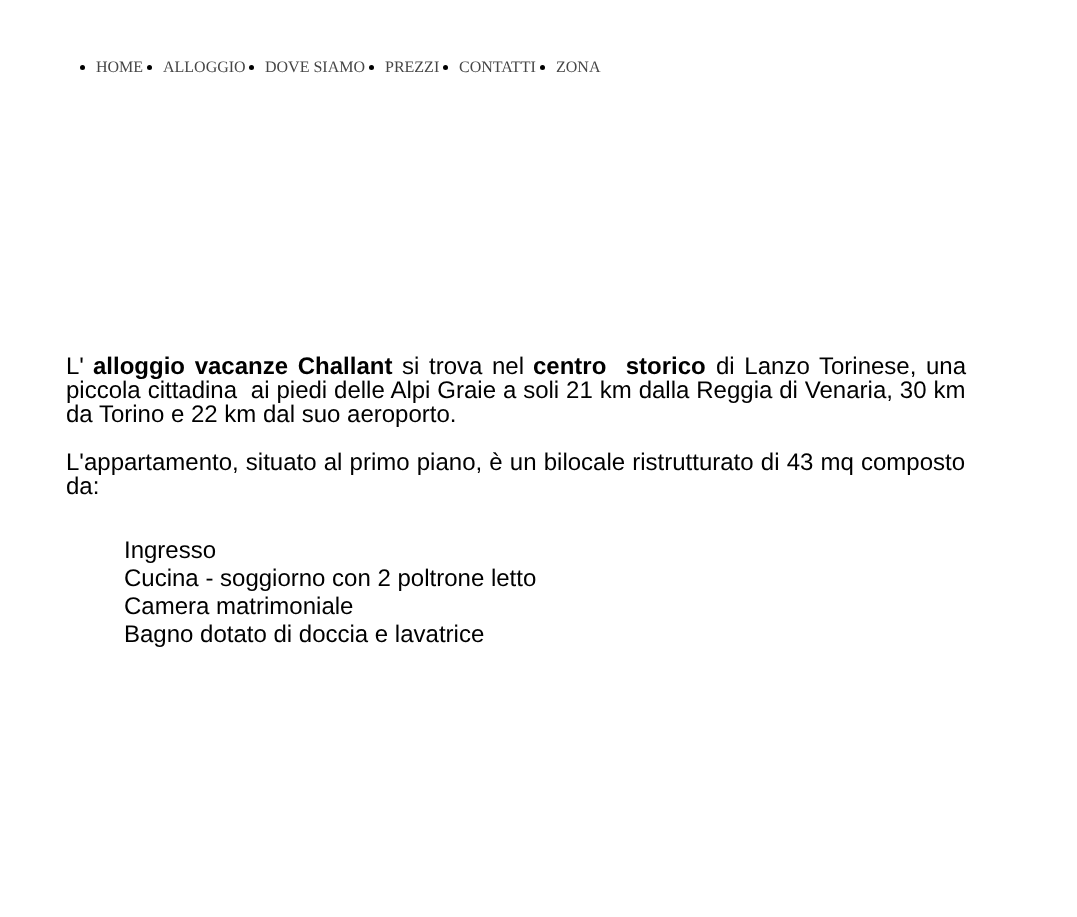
<svg xmlns="http://www.w3.org/2000/svg" width="1077" height="917" viewBox="0 0 1077 917">
  <style>
    .t1 { font: 16px Liberation Serif; fill: #464646; }
    .t2 { font: 24px Liberation Sans; fill: #000; }
    .t3 { font: bold 24px Liberation Sans; fill: #000; }
  </style>
  <rect width="100%" height="100%" fill="#fff"/>
  <circle cx="82.5" cy="67.5" r="2.5" fill="#000"/>
  <text x="96" y="72" class="t1">HOME</text>
  <circle cx="149.5" cy="67.5" r="2.5" fill="#000"/>
  <text x="163" y="72" class="t1">ALLOGGIO</text>
  <circle cx="251.5" cy="67.5" r="2.5" fill="#000"/>
  <text x="265" y="72" class="t1">DOVE SIAMO</text>
  <circle cx="371.5" cy="67.5" r="2.5" fill="#000"/>
  <text x="385" y="72" class="t1">PREZZI</text>
  <circle cx="445.5" cy="67.5" r="2.5" fill="#000"/>
  <text x="459" y="72" class="t1">CONTATTI</text>
  <circle cx="542.5" cy="67.5" r="2.5" fill="#000"/>
  <text x="556" y="72" class="t1">ZONA</text>
  <text x="66" y="374" class="t2">L'</text>
  <text x="93" y="374" word-spacing="3" class="t3">alloggio vacanze Challant</text>
  <text x="402" y="374" word-spacing="3" class="t2">si trova nel</text>
  <text x="533" y="374" word-spacing="3" class="t3" xml:space="preserve">centro  storico</text>
  <text x="716" y="374" word-spacing="3" class="t2">di Lanzo Torinese, una</text>
  <text x="66" y="398" word-spacing="0.25" class="t2" xml:space="preserve">piccola cittadina  ai piedi delle Alpi Graie a soli 21 km dalla Reggia di Venaria, 30 km</text>
  <text x="66" y="422" class="t2">da Torino e 22 km dal suo aeroporto.</text>
  <text x="66" y="470" word-spacing="0.5" class="t2">L'appartamento, situato al primo piano, è un bilocale ristrutturato di 43 mq composto</text>
  <text x="66" y="494" class="t2">da:</text>
  <text x="124" y="558" class="t2">Ingresso</text>
  <text x="124" y="586" class="t2">Cucina - soggiorno con 2 poltrone letto</text>
  <text x="124" y="614" class="t2">Camera matrimoniale</text>
  <text x="124" y="642" class="t2">Bagno dotato di doccia e lavatrice</text>
</svg>
